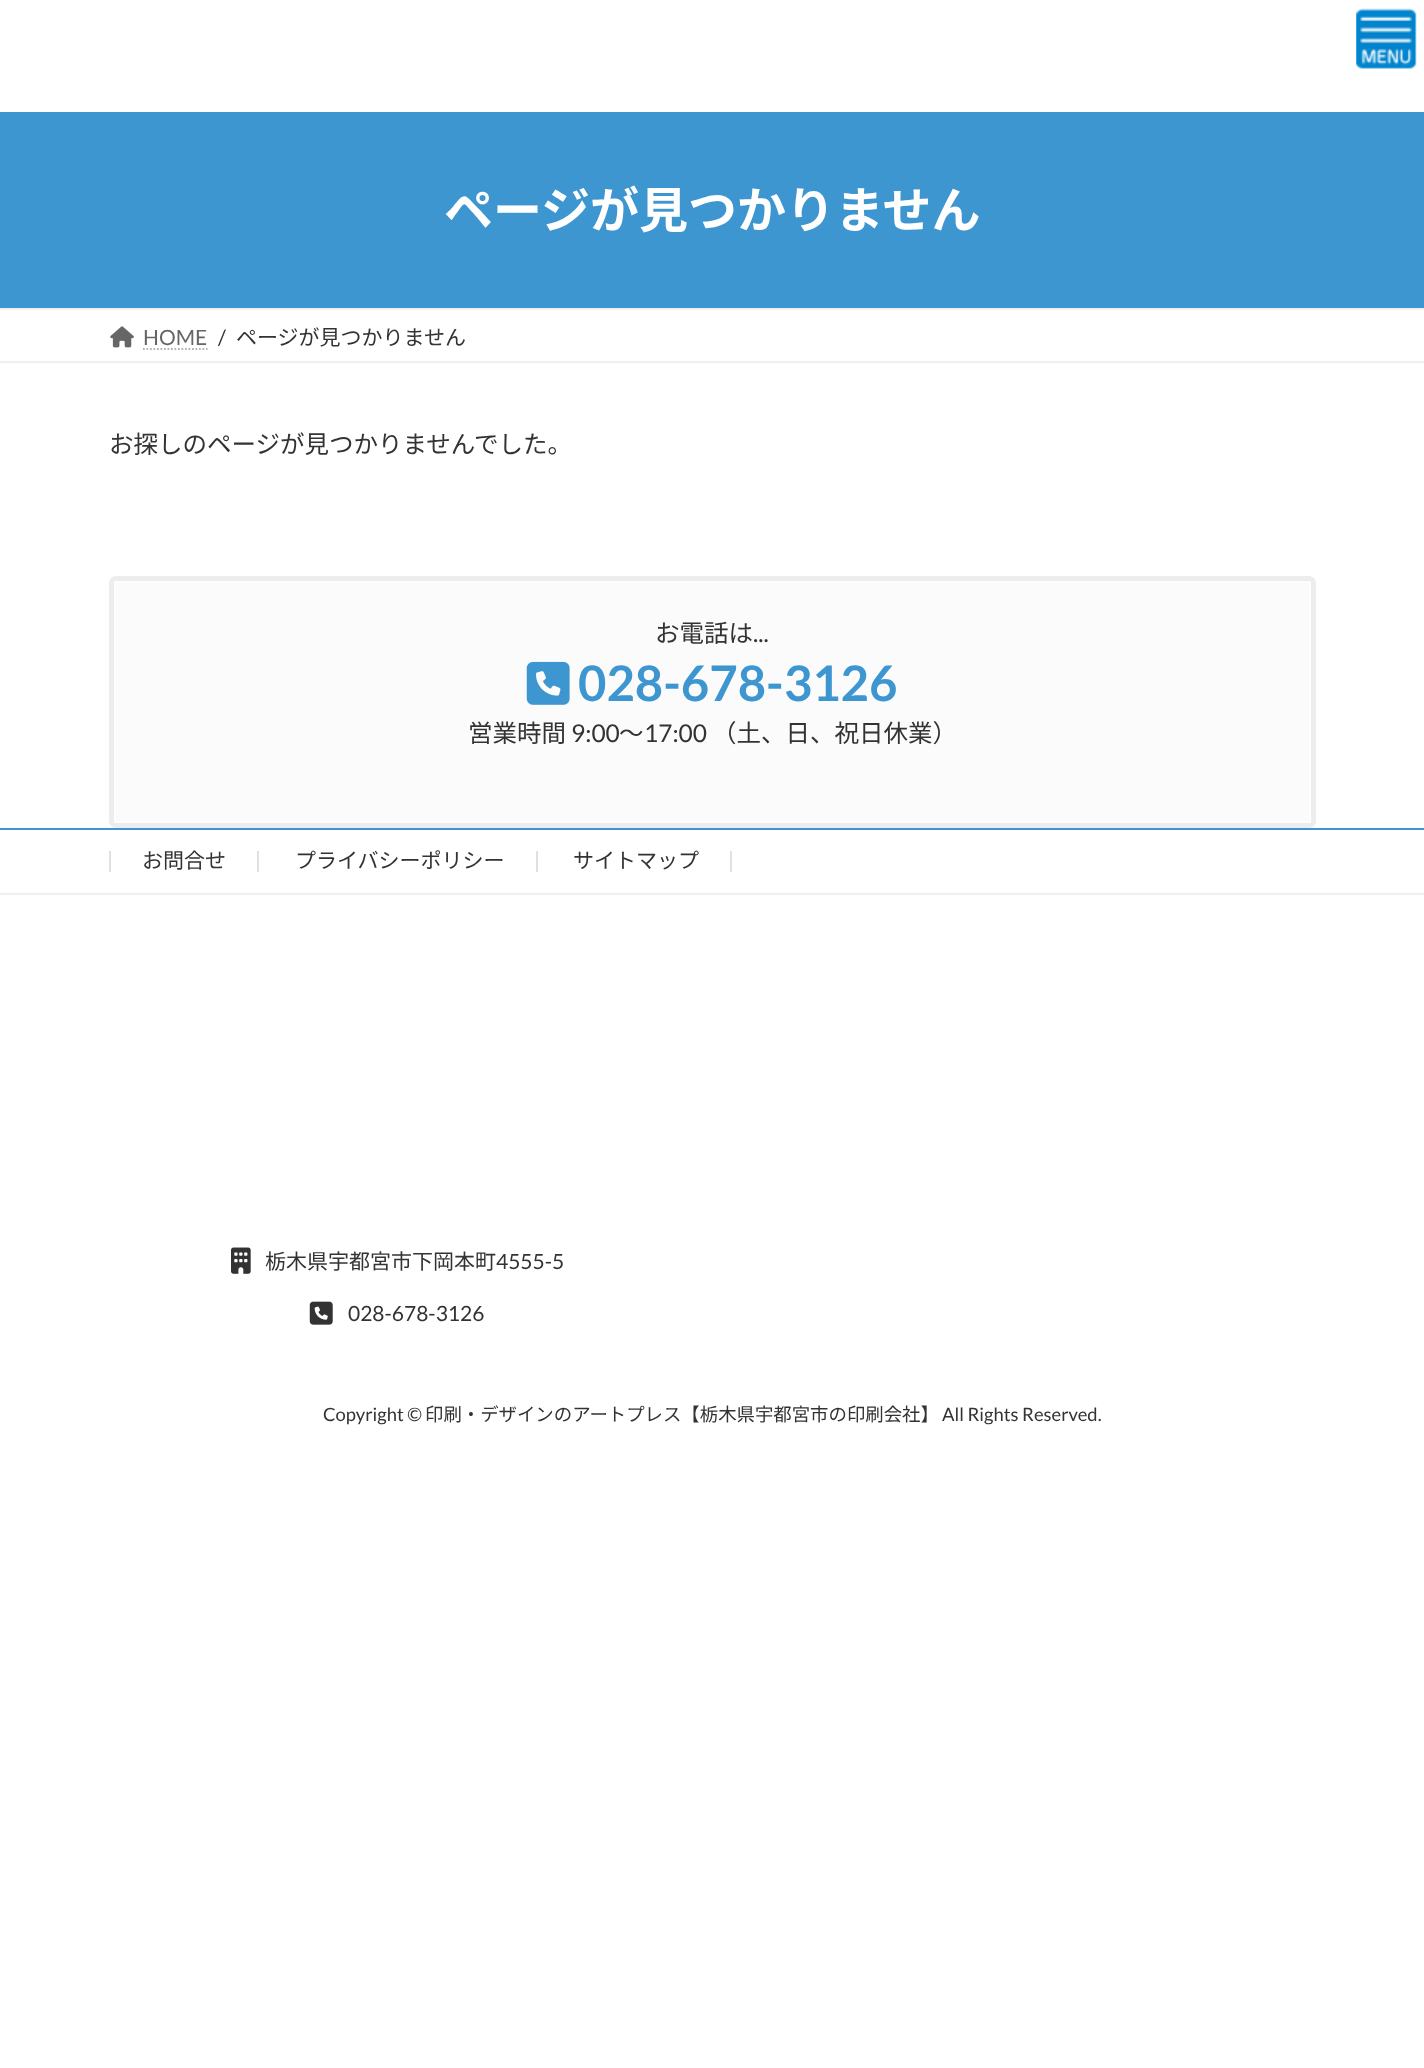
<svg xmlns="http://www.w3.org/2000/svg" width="1424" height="2068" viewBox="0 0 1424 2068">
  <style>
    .t1 { font: bold 49px Noto Sans JP; fill: #fff; }
    .t2 { font: 21px Lato; fill: #666; }
    .t3 { font: 21px Lato; fill: #333; }
    .t4 { font: 21px Noto Sans JP; fill: #333; }
    .t5 { font: 24.5px Noto Sans JP; fill: #333; }
    .t6 { font: 24.5px Lato; fill: #333; }
    .t7 { font: bold 49px Lato; fill: #3e96d1; }
    .t8 { font: 18.4px Lato; fill: #333; }
    .t9 { font: 18.4px Noto Sans JP; fill: #333; }
  </style>
  <rect width="100%" height="100%" fill="#fff"/>
  <image x="1356" y="8" width="61" height="61" href="images/1.png"/>
  <rect x="0" y="112" width="1424" height="196" fill="#3e96d1"/>
  <text x="444" y="228" class="t1">ページが見つかりません</text>
  <rect x="0" y="308" width="1424" height="2" fill="#f0f0f0"/>
  <rect x="0" y="361" width="1424" height="2" fill="#f0f0f0"/>
  <image x="110" y="326" width="24" height="22" href="images/2.png"/>
  <text x="143" y="345" class="t2">HOME</text>
  <path d="M143 349H207.5" fill="none" stroke="#b3b3b3" stroke-width="1.8" stroke-dasharray="1.75 1.75"/>
  <text x="218" y="345" class="t3">/</text>
  <text x="236" y="345" class="t4">ページが見つかりません</text>
  <text x="109" y="453" class="t5">お探しのページが見つかりませんでした。</text>
  <rect x="111.5" y="578.5" width="1202" height="247" rx="4.5" fill="none" stroke="#ededed" stroke-width="5"/>
  <rect x="114" y="581" width="1197" height="242" rx="2" fill="#fbfbfb"/>
  <path d="M116 581C115 581 114 582 114 583V821C114 822 115 823 116 823H1309C1310 823 1311 822 1311 821V583C1311 582 1310 581 1309 581ZM116 583V821H1309V583Z" fill="#fefefe" fill-rule="evenodd"/>
  <text x="655" y="642" class="t5">お電話は</text>
  <text x="753" y="642" class="t6">...</text>
  <image x="526" y="661" width="44" height="44" href="images/3.png"/>
  <text x="578" y="701" class="t7">028-678-3126</text>
  <text x="468" y="742" class="t5">営業時間</text>
  <text x="571" y="742" class="t6">9:00</text>
  <text x="619" y="742" class="t5">〜</text>
  <text x="644" y="742" class="t6">17:00</text>
  <text x="712" y="742" class="t5">（土、日、祝日休業）</text>
  <rect x="0" y="828" width="1424" height="2" fill="#3e96d1"/>
  <rect x="0" y="893" width="1424" height="2" fill="#f0f0f0"/>
  <rect x="257" y="851" width="2" height="21" fill="#e0e0e0"/>
  <rect x="109" y="851" width="2" height="21" fill="#e0e0e0"/>
  <text x="142" y="868" class="t4">お問合せ</text>
  <rect x="536" y="851" width="2" height="21" fill="#e0e0e0"/>
  <text x="295" y="868" class="t4">プライバシーポリシー</text>
  <rect x="730" y="851" width="2" height="21" fill="#e0e0e0"/>
  <text x="573" y="868" class="t4">サイトマップ</text>
  <image x="231" y="1247" width="20" height="27" href="images/4.png"/>
  <text x="265" y="1269" class="t4">栃木県宇都宮市下岡本町</text>
  <text x="496" y="1269" class="t3">4555-5</text>
  <image x="309" y="1301" width="24" height="24" href="images/5.png"/>
  <text x="348" y="1321" class="t3">028-678-3126</text>
  <text x="323" y="1421" class="t8">Copyright ©</text>
  <text x="425" y="1421" class="t9">印刷・デザインのアートプレス【栃木県宇都宮市の印刷会社】</text>
  <text x="942" y="1421" class="t8">All Rights Reserved.</text>
</svg>
